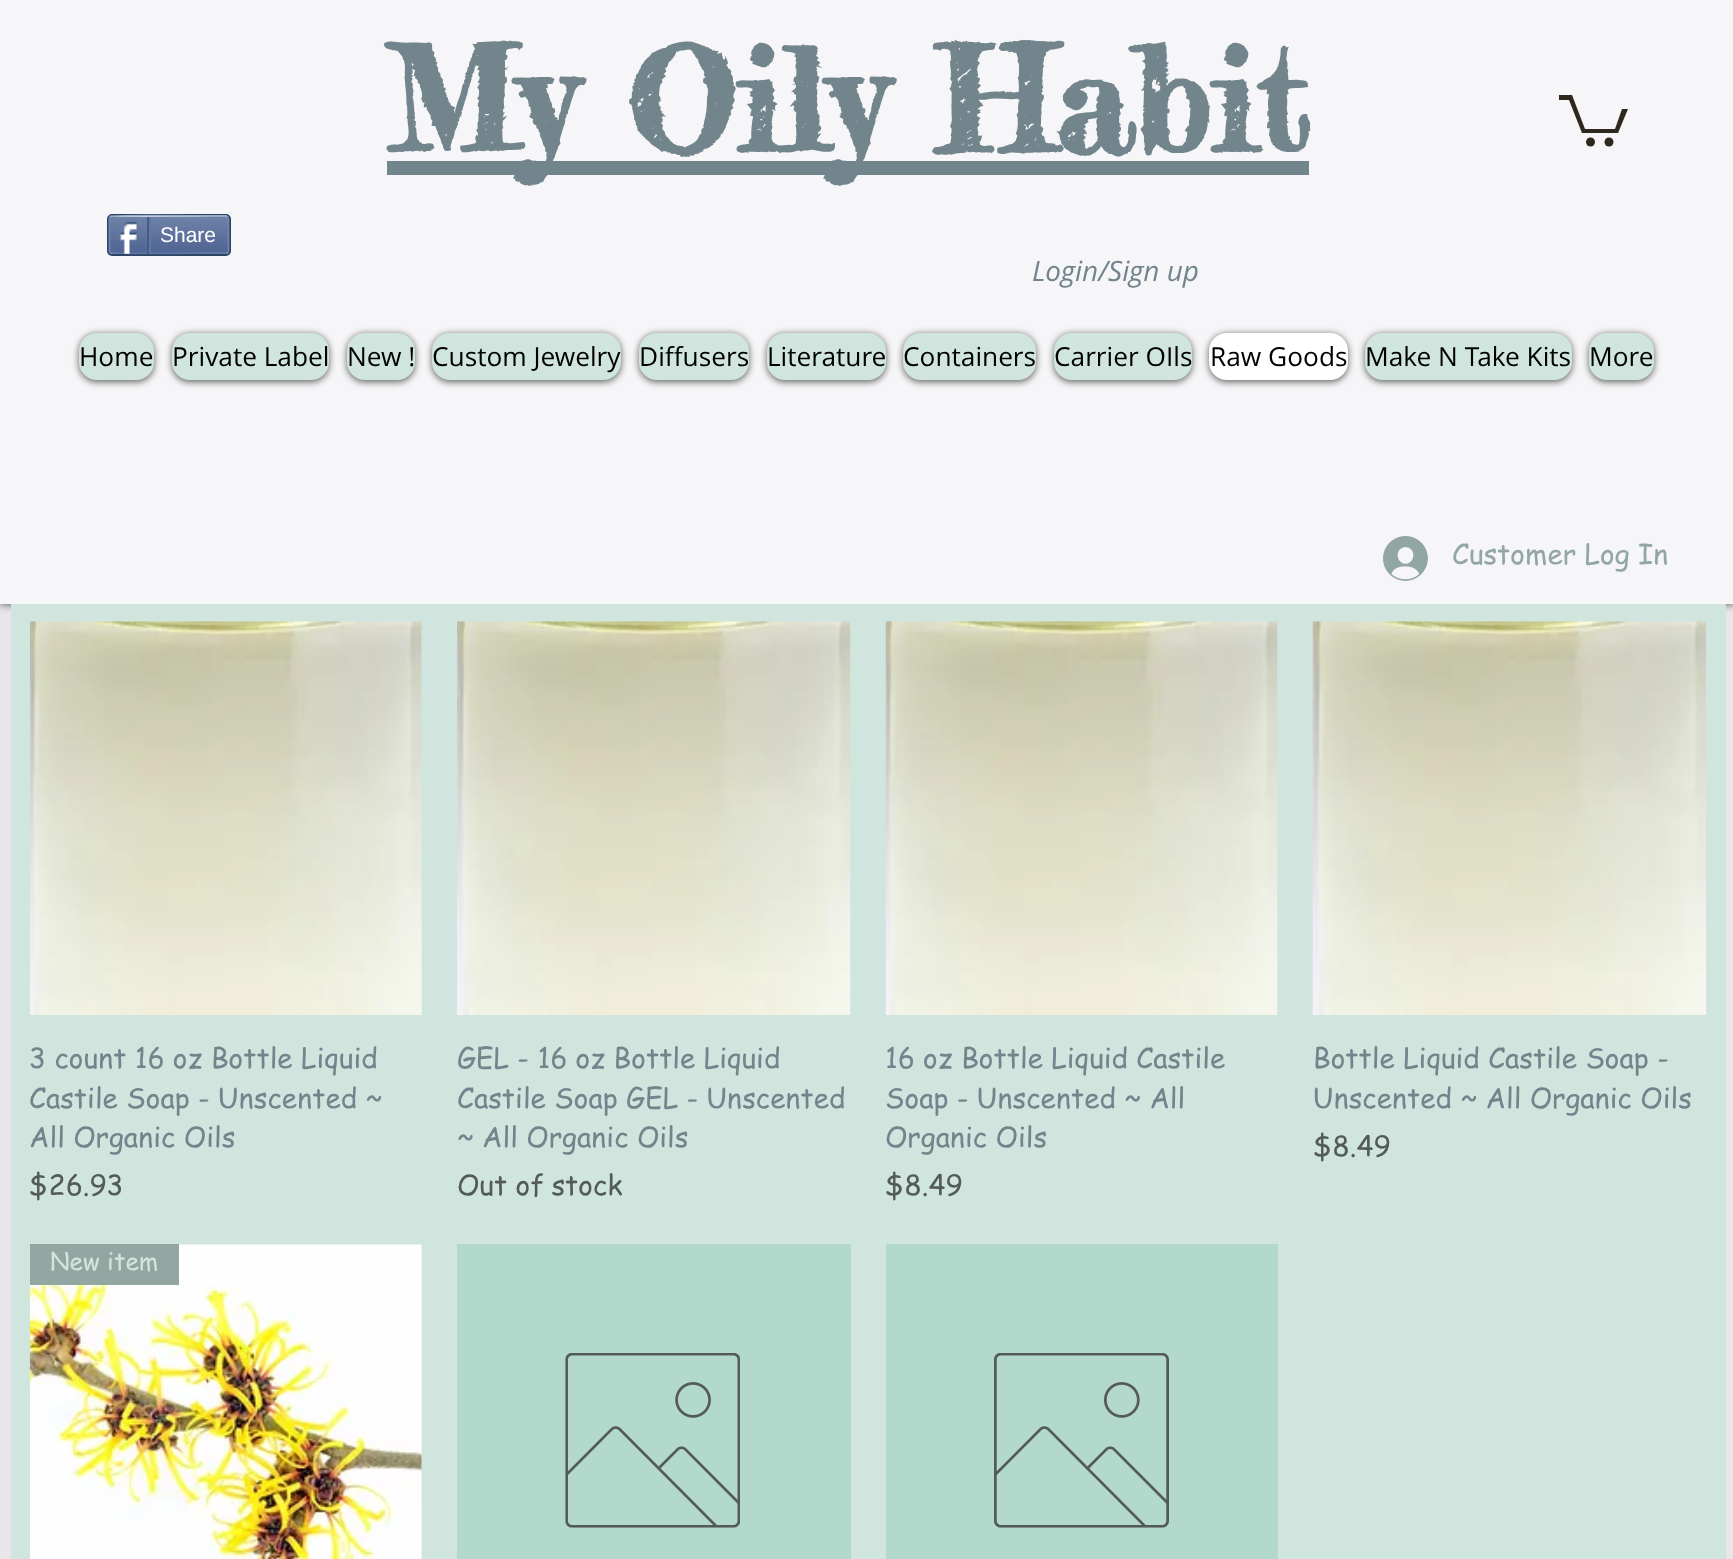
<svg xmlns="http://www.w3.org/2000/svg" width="1733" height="1559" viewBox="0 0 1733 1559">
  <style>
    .t1 { font: bold 141.75px Fredericka the Great; fill: #72858c; }
    .t2 { font: 21px Liberation Sans; fill: #fff; }
    .t3 { font: italic 28px Open Sans; fill: #72858c; }
    .t4 { font: 26.25px Open Sans; fill: #000; }
    .t5 { font: 28px 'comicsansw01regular'; fill: #92a6a2; }
    .t6 { font: 28px 'comicsansw01regular'; fill: #72858c; }
    .t7 { font: 28px 'comicsansw01regular'; fill: #535b58; }
    .t8 { font: 24.5px 'comicsansw01regular'; fill: #d0e5de; }
  </style>
  <defs>
    <clipPath id="clip1"><path d="M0 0H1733V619H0ZM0 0H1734V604H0Z" clip-rule="evenodd"/></clipPath>
  </defs>
  <rect width="100%" height="100%" fill="#e9e6eb"/>
  <g clip-path="url(#clip1)">
    <rect x="0" y="0" width="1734" height="604" fill="#000000b3" filter="blur(4.5px)"/>
  </g>
  <rect x="0" y="0" width="1733" height="604" fill="#ffffff99"/>
  <rect x="387" y="161" width="922" height="14" fill="#72858c"/>
  <text x="386" y="152" class="t1">My Oily Habit</text>
  <path d="M1628 109L1618 133H1582L1569 100H1559V95H1572L1585 129H1615L1622 109" fill="#2d271d"/>
  <circle cx="1609" cy="142" r="4.5" fill="#2d271d"/>
  <circle cx="1590.5" cy="142" r="4.5" fill="#2d271d"/>
  <rect x="108" y="215" width="122" height="40" rx="4" fill="none" stroke="#2d4565" stroke-width="2"/>
  <image x="108" y="217" width="122" height="37" href="images/1.png"/>
  <path d="M110 217L110.5 216.5C112.5 215 197 216 207 216H226L227.5 217" fill="none" stroke="#9aabc6" stroke-width="1.8"/>
  <path d="M227.5 217C228 217.5 228.5 218 228.5 219V250C228.5 251 228 251.5 227.5 252" fill="none" stroke="#6f83ad" stroke-width="1.8"/>
  <path d="M227.5 252L226 253H207C197 253 112.5 254 110.5 252.5L110 252" fill="none" stroke="#6176a3" stroke-width="1.8"/>
  <path d="M110 252C109.5 251.5 109.5 251 109.5 250V219C109.5 218 109.5 217.5 110 217" fill="none" stroke="#6f83ad" stroke-width="1.8"/>
  <image x="119" y="222" width="18" height="32" href="images/2.png"/>
  <rect x="147" y="217" width="2" height="37" fill="#425e85"/>
  <text x="160" y="242" class="t2">Share</text>
  <rect x="149" y="217" width="2" height="35" fill="#6176a3"/>
  <text x="1032" y="281" class="t3">Login/Sign up</text>
  <rect x="79" y="334" width="75" height="48" rx="18" fill="#00000099" filter="blur(3.5px)"/>
  <rect x="79" y="333" width="75" height="47" rx="18" fill="#d0e5de"/>
  <text x="79" y="366" class="t4">Home</text>
  <rect x="172" y="334" width="157" height="48" rx="18" fill="#00000099" filter="blur(3.5px)"/>
  <rect x="172" y="333" width="157" height="47" rx="18" fill="#d0e5de"/>
  <text x="172" y="366" class="t4">Private Label</text>
  <rect x="347" y="334" width="68" height="48" rx="18" fill="#00000099" filter="blur(3.5px)"/>
  <rect x="347" y="333" width="68" height="47" rx="18" fill="#d0e5de"/>
  <text x="347" y="366" class="t4">New !</text>
  <rect x="432" y="334" width="189" height="48" rx="18" fill="#00000099" filter="blur(3.5px)"/>
  <rect x="432" y="333" width="189" height="47" rx="18" fill="#d0e5de"/>
  <text x="432" y="366" class="t4">Custom Jewelry</text>
  <rect x="639" y="334" width="110" height="48" rx="18" fill="#00000099" filter="blur(3.5px)"/>
  <rect x="639" y="333" width="110" height="47" rx="18" fill="#d0e5de"/>
  <text x="639" y="366" class="t4">Diffusers</text>
  <rect x="767" y="334" width="119" height="48" rx="18" fill="#00000099" filter="blur(3.5px)"/>
  <rect x="767" y="333" width="119" height="47" rx="18" fill="#d0e5de"/>
  <text x="767" y="366" class="t4">Literature</text>
  <rect x="903" y="334" width="133" height="48" rx="18" fill="#00000099" filter="blur(3.5px)"/>
  <rect x="903" y="333" width="133" height="47" rx="18" fill="#d0e5de"/>
  <text x="903" y="366" class="t4">Containers</text>
  <rect x="1054" y="334" width="138" height="48" rx="18" fill="#00000099" filter="blur(3.5px)"/>
  <rect x="1054" y="333" width="138" height="47" rx="18" fill="#d0e5de"/>
  <text x="1054" y="366" class="t4">Carrier OIls</text>
  <rect x="1209" y="334" width="139" height="48" rx="18" fill="#00000099" filter="blur(3.5px)"/>
  <rect x="1209" y="333" width="139" height="47" rx="18" fill="#fff"/>
  <text x="1210" y="366" class="t4">Raw Goods</text>
  <rect x="1365" y="334" width="207" height="48" rx="18" fill="#00000099" filter="blur(3.5px)"/>
  <rect x="1365" y="333" width="207" height="47" rx="18" fill="#d0e5de"/>
  <text x="1365" y="366" class="t4">Make N Take Kits</text>
  <rect x="1589" y="334" width="65" height="48" rx="18" fill="#00000099" filter="blur(3.5px)"/>
  <rect x="1589" y="333" width="65" height="47" rx="18" fill="#d0e5de"/>
  <text x="1589" y="366" class="t4">More</text>
  <image x="1383" y="536" width="45" height="45" href="images/3.png"/>
  <text x="1452" y="564" class="t5">Customer Log In</text>
  <rect x="11" y="604" width="1715" height="955" fill="#d0e5de"/>
  <image x="30" y="621" width="392" height="394" href="images/4.png"/>
  <text x="29" y="1068" class="t6">3 count 16 oz Bottle Liquid</text>
  <text x="29" y="1108" class="t6">Castile Soap - Unscented ~</text>
  <text x="29" y="1147" class="t6">All Organic Oils</text>
  <text x="29" y="1195" class="t7">$26.93</text>
  <image x="457" y="621" width="394" height="394" href="images/5.png"/>
  <text x="457" y="1068" class="t6">GEL - 16 oz Bottle Liquid</text>
  <text x="457" y="1108" class="t6">Castile Soap GEL - Unscented</text>
  <text x="457" y="1147" class="t6">~ All Organic Oils</text>
  <text x="457" y="1195" class="t7">Out of stock</text>
  <image x="885" y="621" width="393" height="394" href="images/6.png"/>
  <text x="885" y="1068" class="t6">16 oz Bottle Liquid Castile</text>
  <text x="885" y="1108" class="t6">Soap - Unscented ~ All</text>
  <text x="885" y="1147" class="t6">Organic Oils</text>
  <text x="885" y="1195" class="t7">$8.49</text>
  <image x="1312" y="621" width="394" height="394" href="images/7.png"/>
  <text x="1313" y="1068" class="t6">Bottle Liquid Castile Soap -</text>
  <text x="1313" y="1108" class="t6">Unscented ~ All Organic Oils</text>
  <text x="1313" y="1156" class="t7">$8.49</text>
  <image x="29" y="1244" width="393" height="315" href="images/8.png"/>
  <rect x="30" y="1244" width="149" height="41" fill="#92a6a2"/>
  <text x="50" y="1270" class="t8">New item</text>
  <rect x="457" y="1244" width="394" height="315" fill="#b3d9cc"/>
  <image x="565" y="1353" width="175" height="175" href="images/9.png"/>
  <rect x="886" y="1244" width="392" height="315" fill="#b3d9cc"/>
  <image x="994" y="1353" width="175" height="175" href="images/10.png"/>
</svg>
